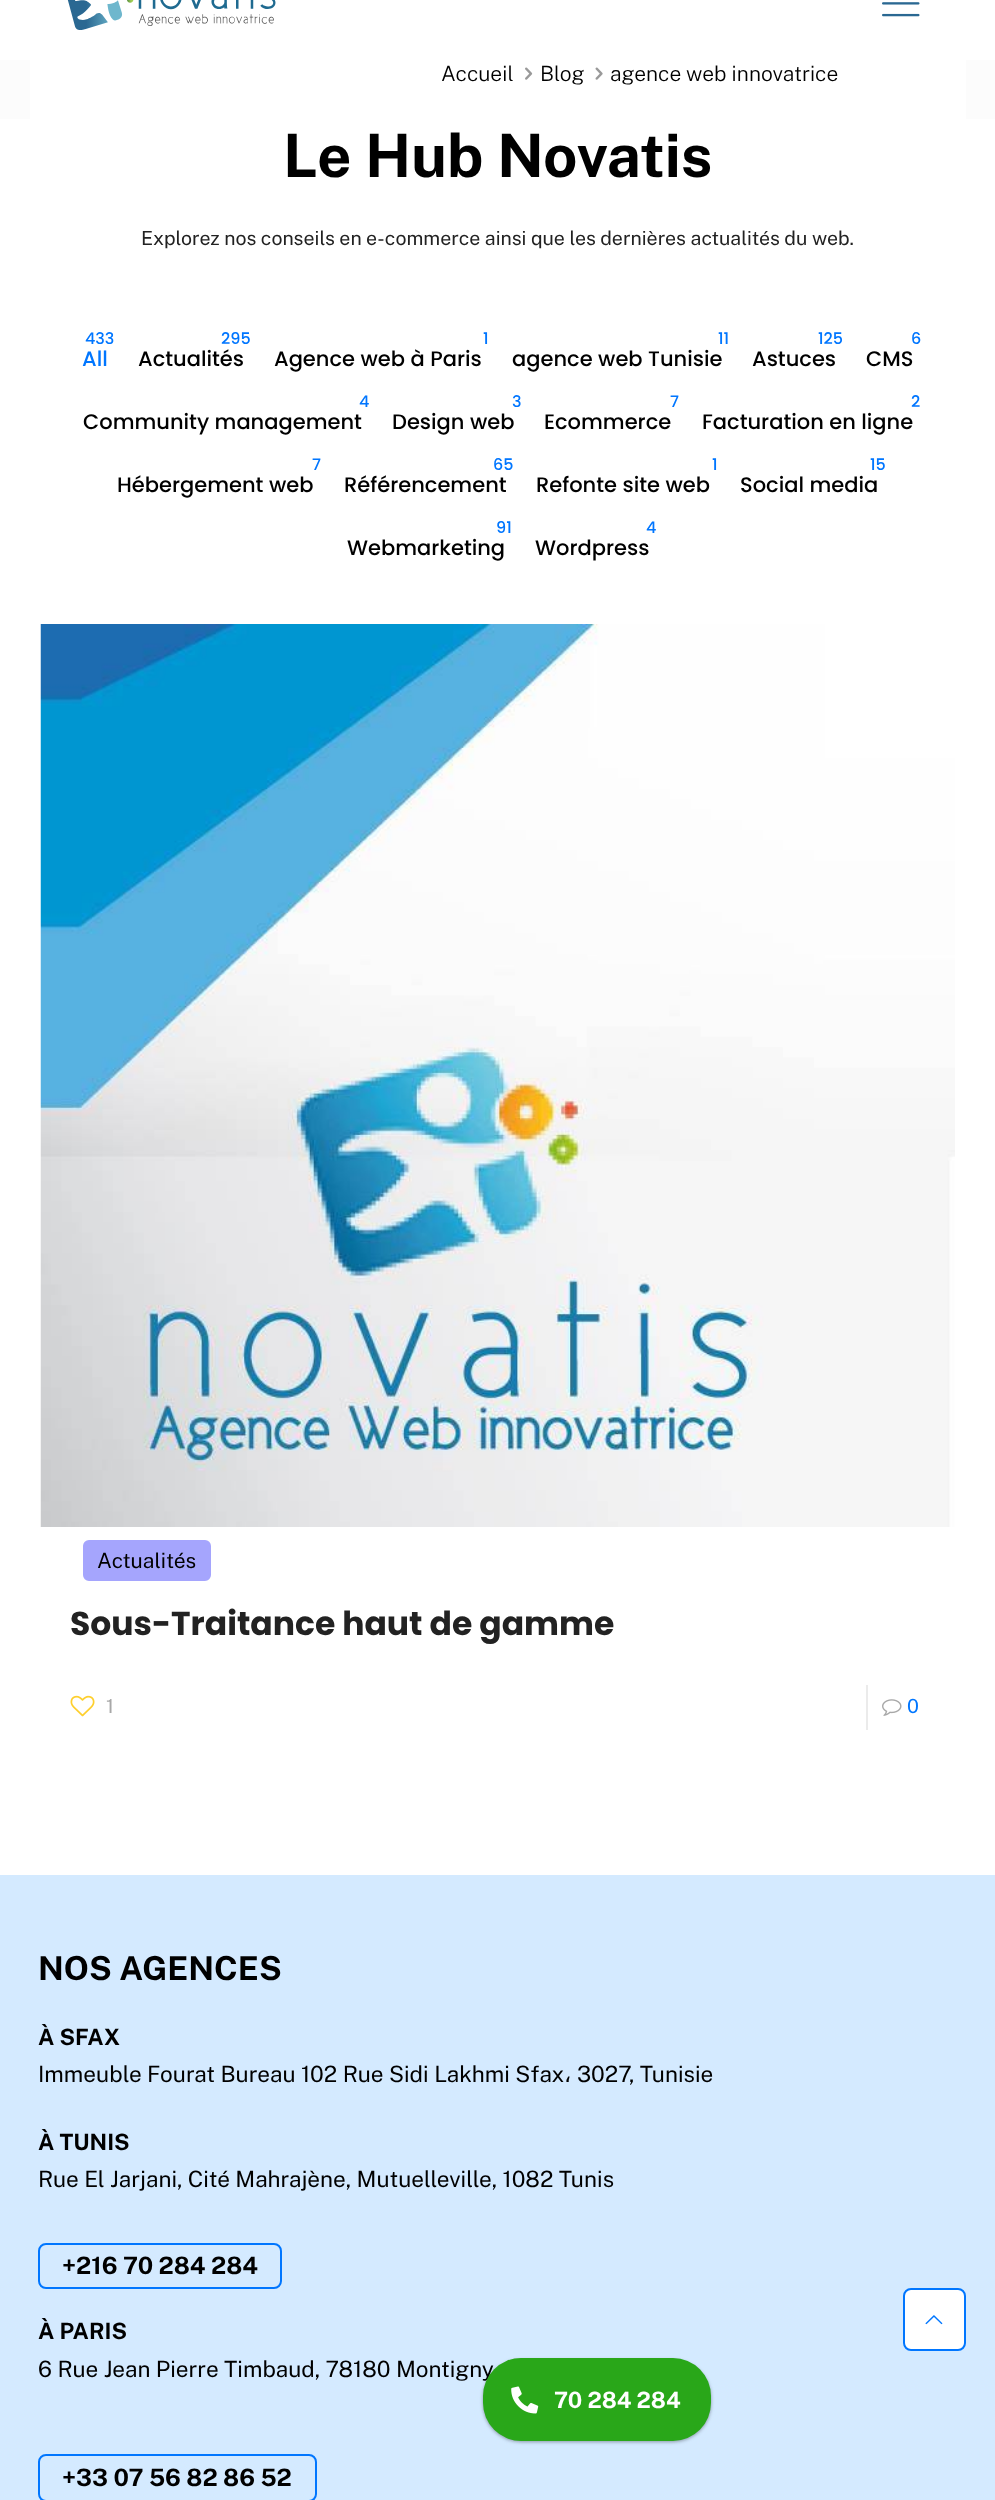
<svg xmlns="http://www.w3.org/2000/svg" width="995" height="2500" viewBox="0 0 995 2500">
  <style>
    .t1 { font: 300 21px Public Sans; fill: #000; }
    .t2 { font: bold 60px Public Sans; fill: #000; }
    .t3 { font: 19.5px Public Sans; fill: #222; }
    .t4 { font: 500 16px Poppins; fill: #0076ff; }
    .t5 { font: 500 21px Poppins; fill: #0076ff; }
    .t6 { font: 500 21px Poppins; fill: #000; }
    .t7 { font: 21px Public Sans; fill: #000; }
    .t8 { font: bold 33px Poppins; fill: #222; }
    .t9 { font: 19.5px Public Sans; fill: #a8a8a8; }
    .t10 { font: 19.5px Public Sans; fill: #0076ff; }
    .t11 { font: bold 33px Public Sans; fill: #000; }
    .t12 { font: bold 22.5px Public Sans; fill: #000; }
    .t13 { font: 22.5px Public Sans; fill: #000; }
    .t14 { font: 22.5px DejaVu Sans; fill: #000; }
    .t15 { font: bold 24px Public Sans; fill: #000; }
    .t16 { font: bold 22.5px Public Sans; fill: #fff; }
  </style>
  <rect width="100%" height="100%" fill="#fcfcfc"/>
  <rect x="0" y="0" width="995" height="60" fill="#fff"/>
  <image x="67" y="0" width="209" height="30" href="images/1.png"/>
  <image x="882" y="2" width="38" height="15" href="images/2.png"/>
  <rect x="30" y="60" width="936" height="59" fill="#fff"/>
  <text x="441" y="81" class="t1">Accueil</text>
  <image x="525" y="67" width="8" height="13" href="images/3.png"/>
  <text x="540" y="81" class="t1">Blog</text>
  <image x="595" y="67" width="8" height="13" href="images/4.png"/>
  <text x="610" y="81" class="t1">agence web innovatrice</text>
  <rect x="0" y="119" width="995" height="1756" fill="#fff"/>
  <text x="283" y="177" class="t2">Le Hub Novatis</text>
  <text x="141" y="245" class="t3">Explorez nos conseils en e-commerce ainsi que les dernières actualités du web.</text>
  <text x="85" y="344" class="t4">433</text>
  <text x="82" y="366" class="t5">All</text>
  <text x="221" y="344" class="t4">295</text>
  <text x="138" y="366" class="t6">Actualités</text>
  <text x="483" y="344" class="t4">1</text>
  <text x="274" y="366" class="t6">Agence web à Paris</text>
  <text x="718" y="344" class="t4">11</text>
  <text x="512" y="366" class="t6">agence web Tunisie</text>
  <text x="818" y="344" class="t4">125</text>
  <text x="752" y="366" class="t6">Astuces</text>
  <text x="911" y="344" class="t4">6</text>
  <text x="866" y="366" class="t6">CMS</text>
  <text x="359" y="407" class="t4">4</text>
  <text x="83" y="429" class="t6">Community management</text>
  <text x="512" y="407" class="t4">3</text>
  <text x="392" y="429" class="t6">Design web</text>
  <text x="670" y="407" class="t4">7</text>
  <text x="544" y="429" class="t6">Ecommerce</text>
  <text x="911" y="407" class="t4">2</text>
  <text x="702" y="429" class="t6">Facturation en ligne</text>
  <text x="312" y="470" class="t4">7</text>
  <text x="117" y="492" class="t6">Hébergement web</text>
  <text x="493" y="470" class="t4">65</text>
  <text x="344" y="492" class="t6">Référencement</text>
  <text x="712" y="470" class="t4">1</text>
  <text x="536" y="492" class="t6">Refonte site web</text>
  <text x="870" y="470" class="t4">15</text>
  <text x="740" y="492" class="t6">Social media</text>
  <text x="496" y="533" class="t4">91</text>
  <text x="347" y="555" class="t6">Webmarketing</text>
  <text x="646" y="533" class="t4">4</text>
  <text x="535" y="555" class="t6">Wordpress</text>
  <image x="40" y="624" width="915" height="903" href="images/5.png"/>
  <rect x="82" y="1539" width="130" height="43" rx="7" fill="#a5a5fd" stroke="#fff" stroke-width="2"/>
  <text x="97" y="1568" class="t7">Actualités</text>
  <text x="70" y="1635" class="t8">Sous-Traitance haut de gamme</text>
  <image x="70" y="1695" width="25" height="22" href="images/6.png"/>
  <text x="106" y="1713" class="t9">1</text>
  <rect x="866" y="1685" width="2" height="45" fill="#ebebeb"/>
  <image x="882" y="1699" width="20" height="17" href="images/7.png"/>
  <text x="907" y="1713" class="t10">0</text>
  <rect x="0" y="1875" width="995" height="625" fill="#d4eaff"/>
  <text x="38" y="1980" class="t11">NOS AGENCES</text>
  <text x="38" y="2045" class="t12">À SFAX</text>
  <text x="38" y="2082" class="t13">Immeuble Fourat Bureau 102 Rue Sidi Lakhmi Sfax</text>
  <text x="564" y="2082" class="t14">،</text>
  <text x="577" y="2082" class="t13">3027, Tunisie</text>
  <text x="38" y="2150" class="t12">À TUNIS</text>
  <text x="38" y="2187" class="t13">Rue El Jarjani, Cité Mahrajène, Mutuelleville, 1082 Tunis</text>
  <rect x="39" y="2244" width="242" height="44" rx="7" fill="none" stroke="#0076ff" stroke-width="2"/>
  <text x="62" y="2274" class="t15">+216 70 284 284</text>
  <text x="38" y="2339" class="t12">À PARIS</text>
  <text x="38" y="2377" class="t13">6 Rue Jean Pierre Timbaud, 78180 Montigny</text>
  <rect x="39" y="2455" width="277" height="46" rx="7" fill="none" stroke="#0076ff" stroke-width="2"/>
  <text x="62" y="2486" class="t15">+33 07 56 82 86 52</text>
  <rect x="483" y="2360" width="228" height="82" rx="38" fill="#0000003d" filter="blur(1.5px)"/>
  <rect x="483" y="2360" width="228" height="82" rx="38" fill="#0000001f" filter="blur(2px)"/>
  <rect x="483" y="2358" width="228" height="83" rx="38" fill="#29a719"/>
  <image x="511" y="2386" width="28" height="28" href="images/8.png"/>
  <text x="554" y="2408" class="t16">70 284 284</text>
  <rect x="904" y="2289" width="61" height="61" rx="7" fill="#fff" stroke="#0076ff" stroke-width="2"/>
  <image x="925" y="2315" width="18" height="10" href="images/9.png"/>
</svg>
